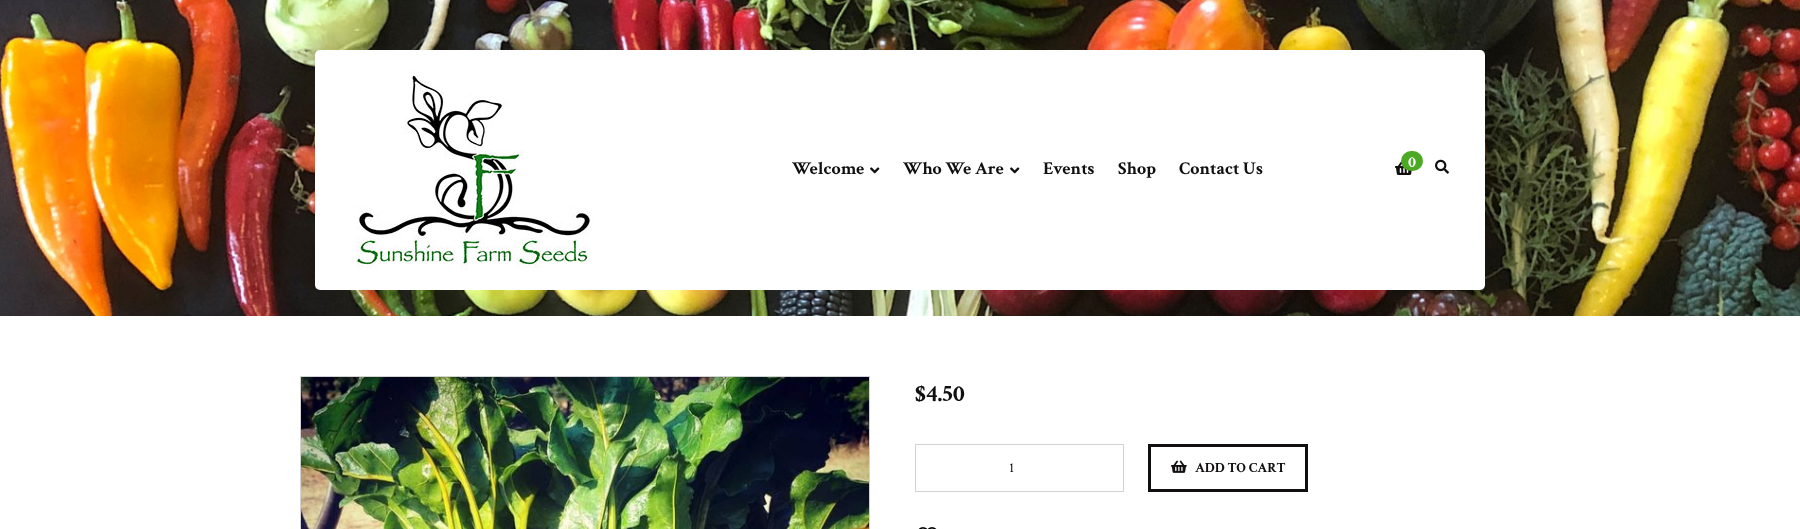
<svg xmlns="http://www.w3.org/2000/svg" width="1800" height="529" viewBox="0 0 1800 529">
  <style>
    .t1 { font: bold 18px Crimson Text; fill: #110f0f; }
    .t2 { font: bold 16px Crimson Text; fill: #fff; }
    .t3 { font: bold 24px Crimson Text; fill: #110f0f; }
    .t4 { font: 14px Crimson Text; fill: #110f0f; }
    .t5 { font: bold 14px Crimson Text; fill: #110f0f; }
  </style>
  <rect width="100%" height="100%" fill="#fff"/>
  <image x="0" y="0" width="1800" height="316" href="images/5.png"/>
  <rect x="315" y="50" width="1170" height="240" rx="5" fill="#fff"/>
  <image x="356" y="70" width="240" height="200" href="images/1.png"/>
  <text x="792" y="174" class="t1">Welcome</text>
  <image x="870" y="167" width="10" height="7" href="images/2.png"/>
  <text x="903" y="174" class="t1">Who We Are</text>
  <image x="1010" y="167" width="10" height="7" href="images/2.png"/>
  <text x="1043" y="174" class="t1">Events</text>
  <text x="1118" y="174" class="t1">Shop</text>
  <text x="1179" y="174" class="t1">Contact Us</text>
  <image x="1395" y="161" width="17" height="14" href="images/3.png"/>
  <rect x="1401" y="151" width="22" height="20" rx="10" fill="#4ba924"/>
  <text x="1408" y="167" class="t2">0</text>
  <image x="1435" y="159" width="14" height="15" href="images/4.png"/>
  <rect x="300.5" y="376.5" width="569" height="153" fill="none" stroke="#d2d2d2"/>
  <image x="301" y="377" width="568" height="152" href="images/6.png"/>
  <text x="915" y="401" class="t3">$4.50</text>
  <rect x="915.5" y="444.5" width="208" height="47" fill="none" stroke="#d2d2d2"/>
  <text x="1009" y="472" class="t4">1</text>
  <rect x="1149.5" y="445.5" width="157" height="45" fill="none" stroke="#110f0f" stroke-width="3"/>
  <image x="1171" y="460" width="16" height="13" href="images/7.png"/>
  <text x="1195" y="472" class="t5">ADD TO CART</text>
  <image x="918" y="527" width="19" height="2" href="images/8.png"/>
</svg>
